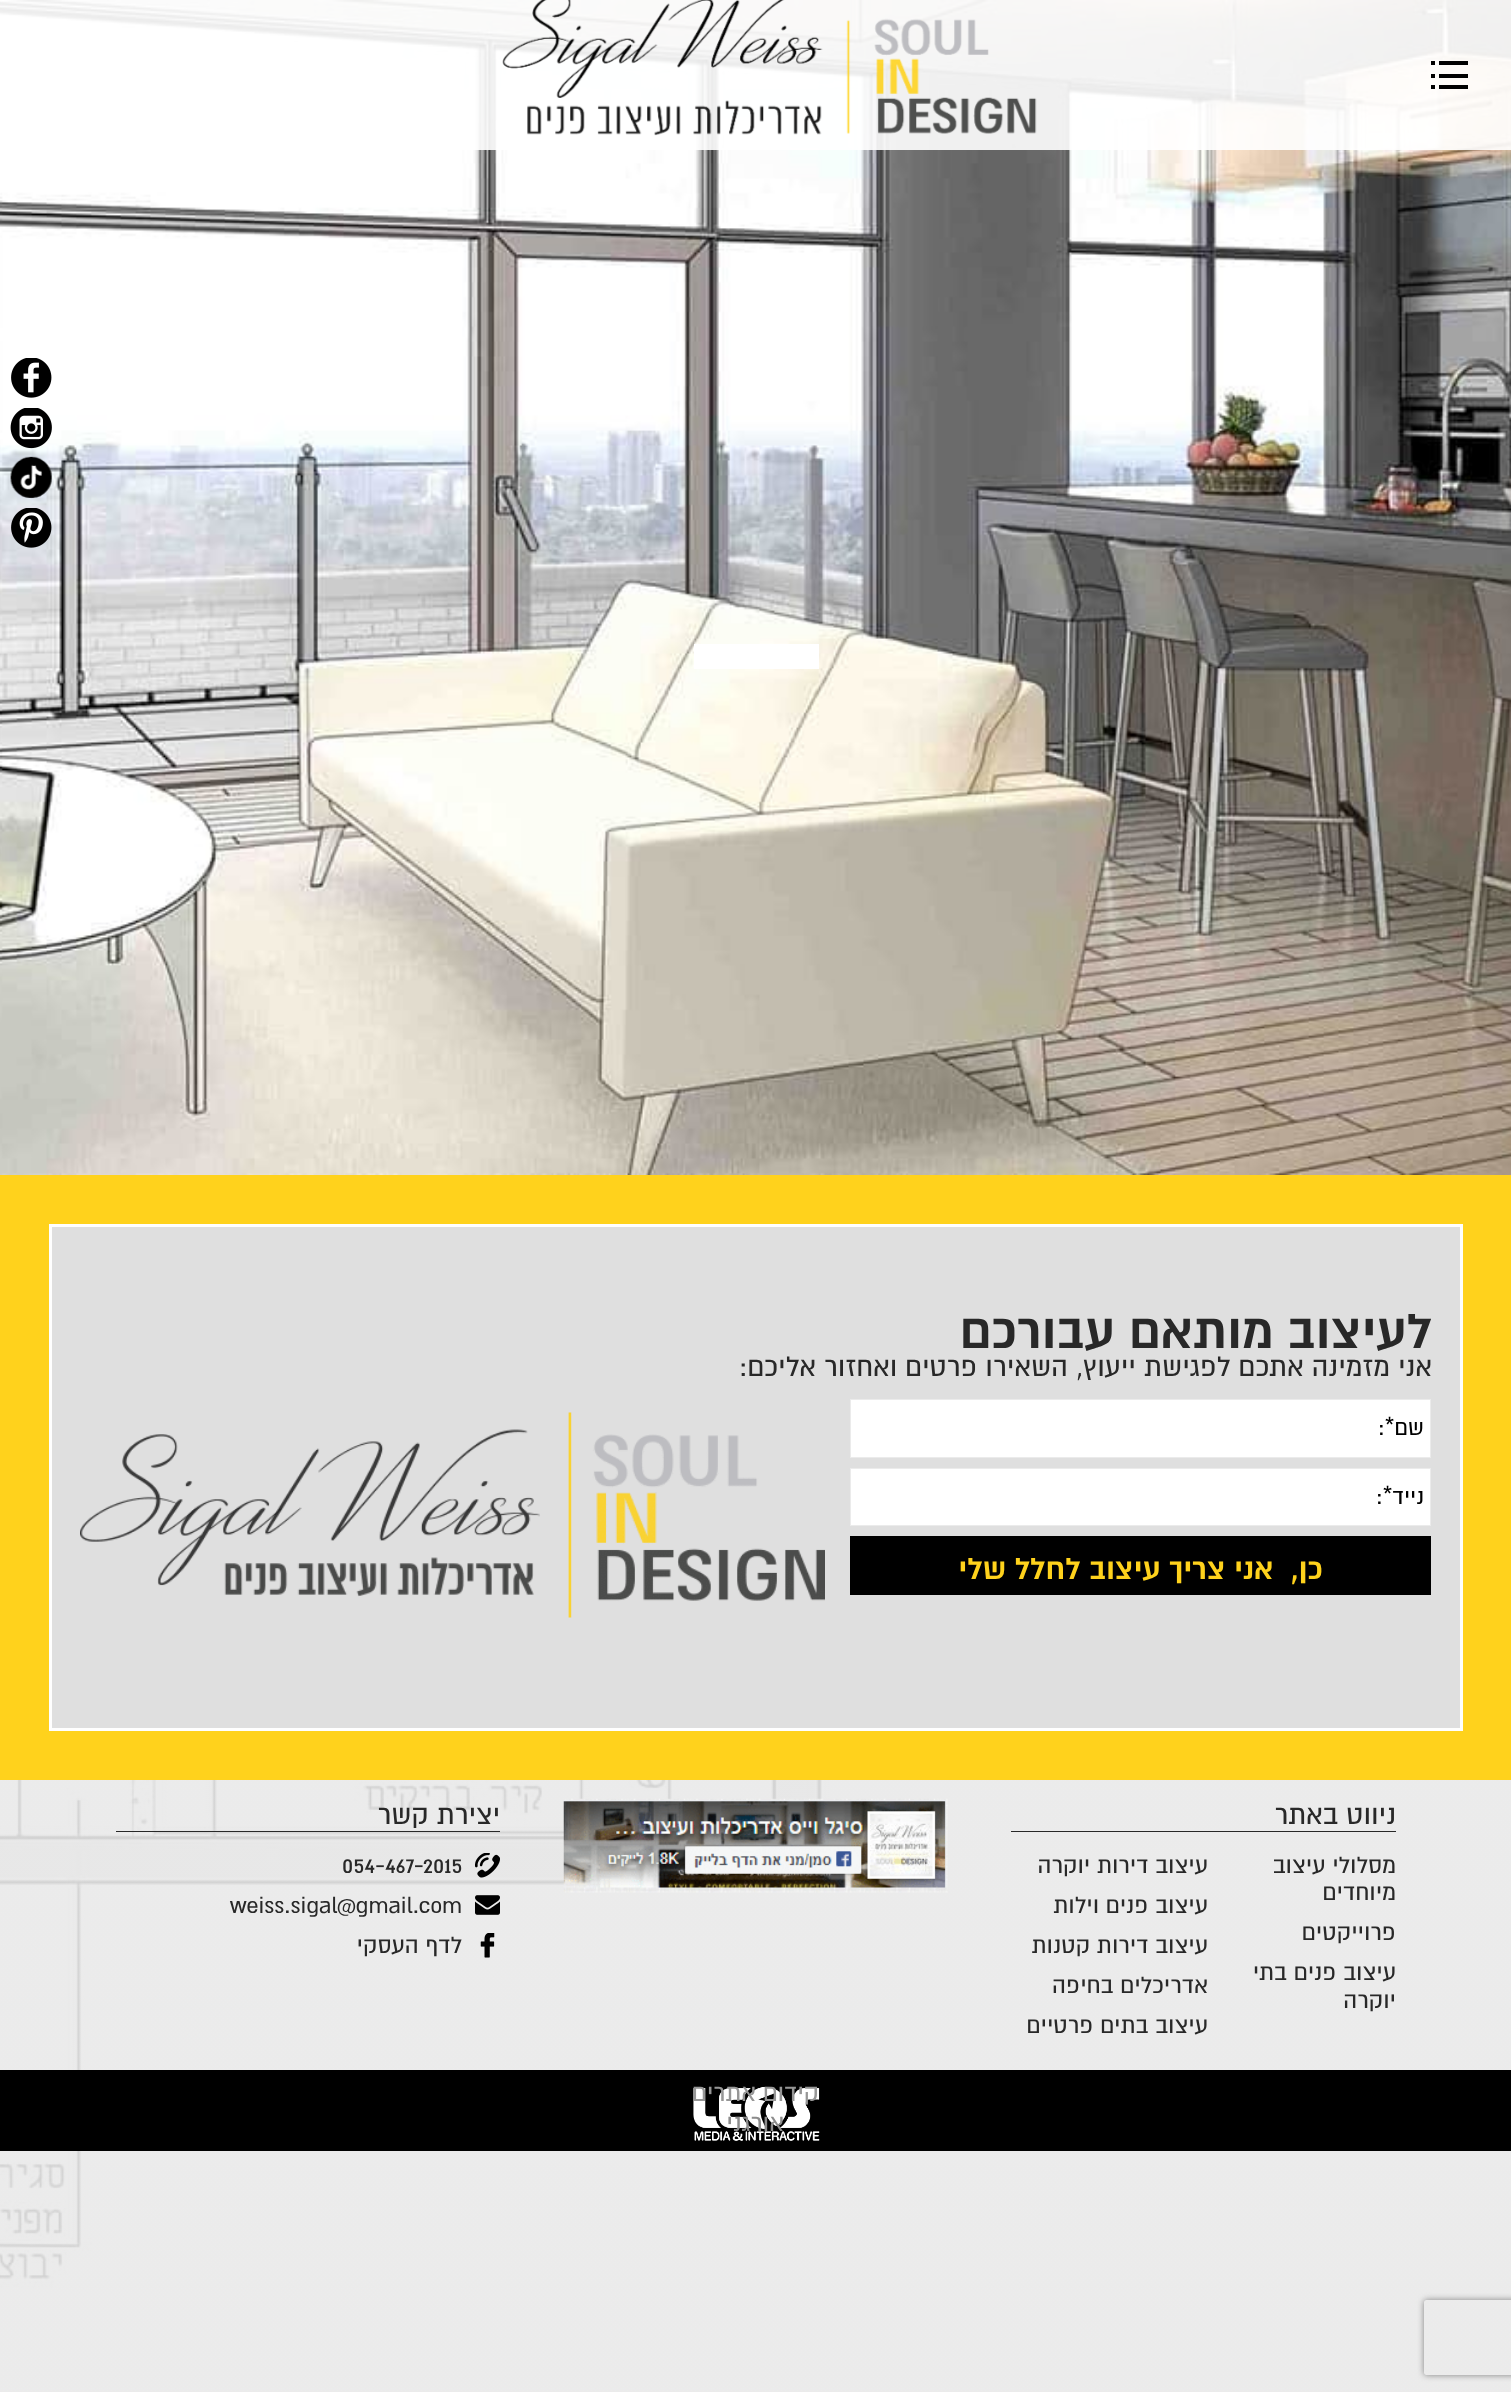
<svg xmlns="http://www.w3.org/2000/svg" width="1511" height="2392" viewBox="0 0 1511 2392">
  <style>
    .t1 { font: bold 56.25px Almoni; direction: rtl; fill: #282828; }
    .t2 { font: 31.25px Almoni; direction: rtl; fill: #282828; }
    .t3 { font: 25px Almoni; direction: rtl; fill: #000; }
    .t4 { font: bold 33.75px Almoni; direction: rtl; fill: #ffd21c; }
    .t5 { font: 26.25px Almoni; direction: rtl; fill: #282828; }
    .t6 { font: 26.25px Almoni; fill: #282828; }
    .t7 { font: 27.5px Almoni; direction: rtl; fill: #969696; }
    .t8 { font: 27.5px Almoni; direction: rtl; fill: #8c8c8c; }
  </style>
  <defs>
    <clipPath id="clip1"><rect x="80" y="1314" width="1351" height="327"/></clipPath>
    <clipPath id="clip2"><path d="M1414 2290H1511V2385H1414ZM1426.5 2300H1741.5C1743 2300 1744 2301 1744 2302.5V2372.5C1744 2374 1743 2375 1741.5 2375H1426.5C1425 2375 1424 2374 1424 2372.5V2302.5C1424 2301 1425 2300 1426.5 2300Z" clip-rule="evenodd"/></clipPath>
  </defs>
  <rect width="100%" height="100%" fill="#fff"/>
  <image x="0" y="1780" width="1511" height="612" href="images/1.png"/>
  <image x="0" y="0" width="1511" height="1175" href="images/2.png"/>
  <rect x="694" y="644" width="125" height="25" fill="#fff"/>
  <rect x="0" y="0" width="1511" height="150" fill="#ffffffe6"/>
  <rect x="1439" y="61" width="29" height="4" fill="#000"/>
  <rect x="1431" y="61" width="4" height="4" fill="#000"/>
  <rect x="1439" y="74" width="29" height="4" fill="#000"/>
  <rect x="1431" y="74" width="4" height="4" fill="#000"/>
  <rect x="1439" y="85" width="29" height="4" fill="#000"/>
  <rect x="1431" y="85" width="4" height="4" fill="#000"/>
  <image x="502" y="0" width="535" height="136" href="images/3.png"/>
  <image x="11" y="358" width="41" height="40" href="images/4.png"/>
  <circle cx="31.5" cy="427.5" r="18.5" fill="#fff"/>
  <image x="10" y="408" width="42" height="41" href="images/5.png"/>
  <circle cx="31.5" cy="477.5" r="18.5" fill="#fff"/>
  <image x="10" y="456" width="43" height="43" href="images/6.png"/>
  <circle cx="31.5" cy="527.5" r="18.5" fill="#fff"/>
  <image x="11" y="508" width="41" height="40" href="images/7.png"/>
  <rect x="52" y="1227" width="1408" height="501" fill="#dfdfdf"/>
  <rect x="24.5" y="1199.5" width="1462" height="556" fill="none" stroke="#ffd21c" stroke-width="49"/>
  <rect x="50.5" y="1225.5" width="1411" height="504" fill="none" stroke="#fff" stroke-width="3"/>
  <g clip-path="url(#clip1)">
    <text x="1432" y="1348" class="t1">לעיצוב מותאם עבורכם</text>
  </g>
  <text x="1432" y="1376" class="t2">אני מזמינה אתכם לפגישת ייעוץ, השאירו פרטים ואחזור אליכם:</text>
  <rect x="850.5" y="1399.5" width="580" height="58" fill="#fff" stroke="#ebebeb"/>
  <text x="1424" y="1435" class="t3">שם*:</text>
  <rect x="850.5" y="1468.5" width="580" height="57" fill="#fff" stroke="#ebebeb"/>
  <text x="1424" y="1504" class="t3">נייד*:</text>
  <rect x="850" y="1536" width="581" height="59" fill="#000"/>
  <text x="1323" y="1579" class="t4" xml:space="preserve">כן,  אני צריך עיצוב לחלל שלי</text>
  <image x="80" y="1412" width="745" height="206" href="images/8.png"/>
  <rect x="1011" y="1831" width="385" height="1" fill="#282828"/>
  <text x="1396" y="1824" class="t2">ניווט באתר</text>
  <text x="1396" y="1873" class="t5">מסלולי עיצוב</text>
  <text x="1396" y="1900" class="t5">מיוחדים</text>
  <text x="1208" y="1873" class="t5">עיצוב דירות יוקרה</text>
  <text x="1208" y="1913" class="t5">עיצוב פנים וילות</text>
  <text x="1396" y="1940" class="t5">פרוייקטים</text>
  <text x="1208" y="1953" class="t5">עיצוב דירות קטנות</text>
  <text x="1396" y="1980" class="t5">עיצוב פנים בתי</text>
  <text x="1396" y="2008" class="t5">יוקרה</text>
  <text x="1208" y="1993" class="t5">אדריכלים בחיפה</text>
  <text x="1208" y="2033" class="t5">עיצוב בתים פרטיים</text>
  <image x="563" y="1798" width="385" height="95" href="images/9.png"/>
  <rect x="116" y="1831" width="384" height="1" fill="#282828"/>
  <text x="500" y="1824" class="t2">יצירת קשר</text>
  <image x="475" y="1853" width="25" height="25" href="images/10.png"/>
  <text x="342" y="1873" class="t6">054-467-2015</text>
  <image x="475" y="1895" width="25" height="20" href="images/11.png"/>
  <text x="230" y="1913" class="t6">weiss.sigal@gmail.com</text>
  <image x="480" y="1933" width="15" height="25" href="images/12.png"/>
  <text x="462" y="1953" class="t5">לדף העסקי</text>
  <rect x="0" y="2070" width="1511" height="81" fill="#000"/>
  <image x="693" y="2086" width="127" height="55" href="images/13.png"/>
  <text x="819" y="2101" class="t7">קידום אתרים</text>
  <text x="784" y="2131" class="t8">אורגני</text>
  <g clip-path="url(#clip2)">
    <rect x="1424" y="2300" width="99" height="75" rx="2.5" fill="#808080" filter="blur(3px)"/>
  </g>
</svg>
